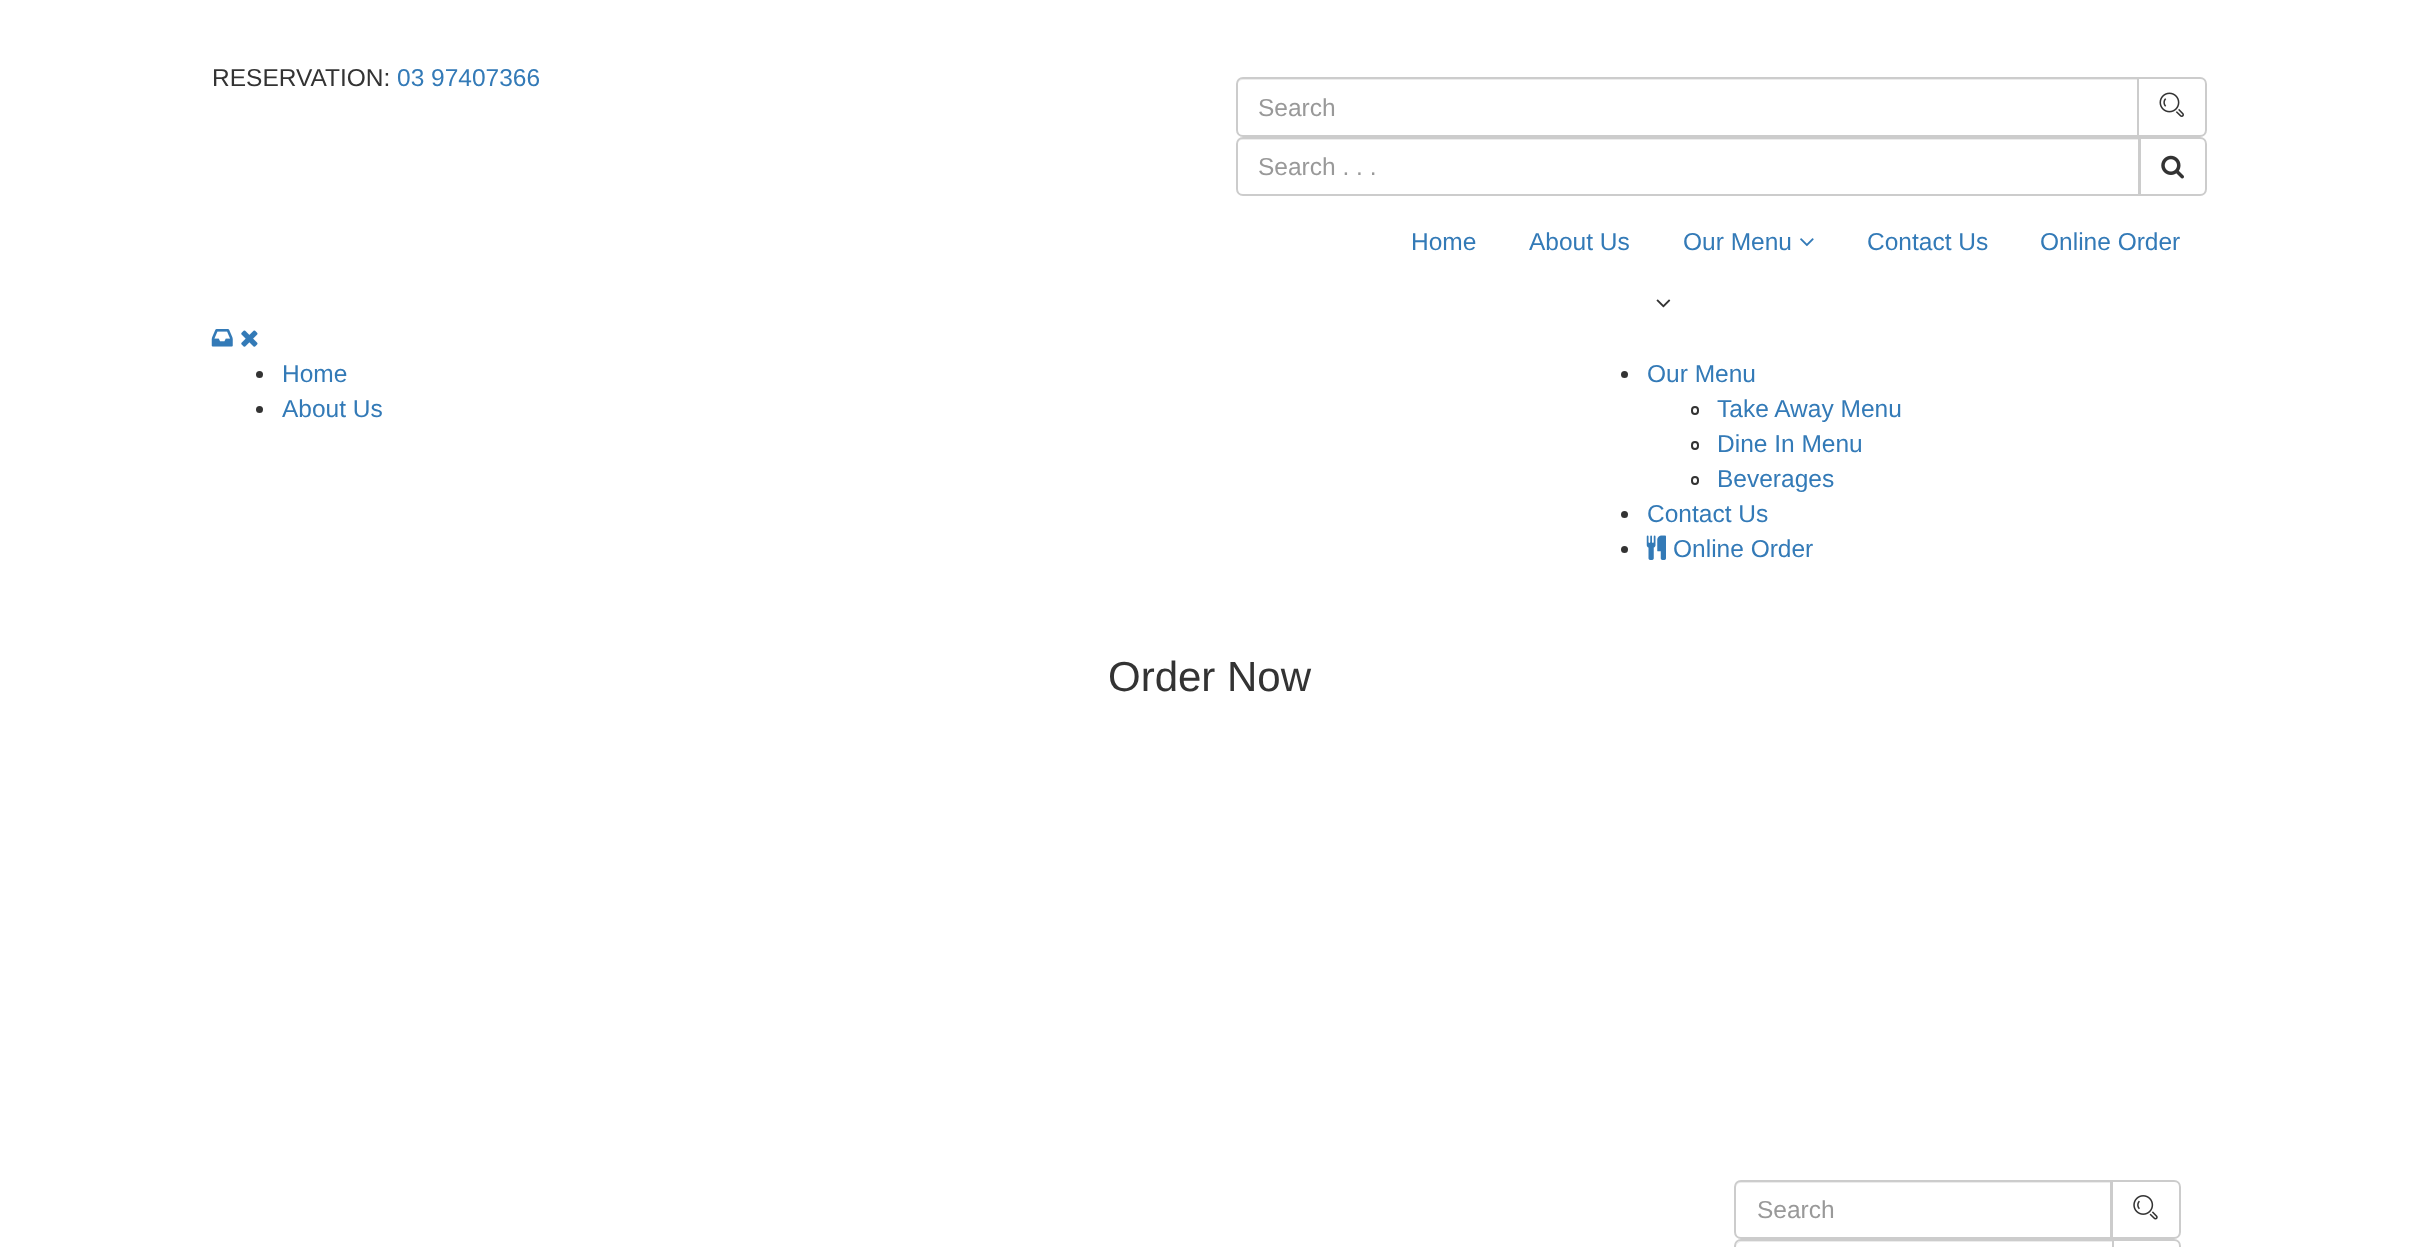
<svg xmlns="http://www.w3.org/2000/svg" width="2417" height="1247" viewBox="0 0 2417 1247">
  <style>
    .t1 { font: 24.5px Liberation Sans; fill: #333; }
    .t2 { font: 24.5px Liberation Sans; fill: #337ab7; }
    .t3 { font: 24.5px Liberation Sans; fill: #999; }
    .t4 { font: 42px Liberation Sans; fill: #333; }
  </style>
  <rect width="100%" height="100%" fill="#fff"/>
  <text x="212" y="86" class="t1">RESERVATION:</text>
  <text x="397" y="86" class="t2">03 97407366</text>
  <path d="M1242 80H2137V79H1242C1238 79 1237 83 1237 86C1237 83 1240 80 1242 80Z" fill="#ececec"/>
  <path d="M1243 78H2138V136H1243C1239.5 136 1237 133.5 1237 130V84C1237 80.5 1239.5 78 1243 78Z" fill="none" stroke="#ccc" stroke-width="2"/>
  <text x="1258" y="116" class="t3">Search</text>
  <path d="M2138 78H2200C2203.5 78 2206 80.5 2206 84V130C2206 133.5 2203.5 136 2200 136H2138Z" fill="#fff" stroke="#ccc" stroke-width="2"/>
  <image x="2159" y="92" width="25" height="25" href="images/1.png"/>
  <path d="M1242 140H2138V194H2139V138H1242C1238 138 1237 142 1237 145C1237 142 1240 140 1242 140Z" fill="#ececec"/>
  <path d="M1243 138H2139V195H1243C1239.5 195 1237 192.5 1237 189V144C1237 140.5 1239.5 138 1243 138Z" fill="none" stroke="#ccc" stroke-width="2"/>
  <text x="1258" y="175" class="t3">Search . . .</text>
  <path d="M2140 138H2200C2203.5 138 2206 140.5 2206 144V189C2206 192.5 2203.5 195 2200 195H2140Z" fill="#fff" stroke="#ccc" stroke-width="2"/>
  <image x="2161" y="155" width="23" height="24" href="images/2.png"/>
  <text x="1411" y="250" class="t2">Home</text>
  <text x="1529" y="250" class="t2">About Us</text>
  <text x="1683" y="250" class="t2">Our Menu</text>
  <image x="1800" y="238" width="14" height="9" href="images/3.png"/>
  <image x="1656" y="299" width="15" height="9" href="images/4.png"/>
  <text x="1867" y="250" class="t2">Contact Us</text>
  <text x="2040" y="250" class="t2">Online Order</text>
  <image x="211" y="329" width="22" height="18" href="images/5.png"/>
  <image x="241" y="330" width="17" height="17" href="images/6.png"/>
  <circle cx="259.5" cy="374.5" r="3.5" fill="#333"/>
  <text x="282" y="382" class="t2">Home</text>
  <circle cx="259.5" cy="409.5" r="3.5" fill="#333"/>
  <text x="282" y="417" class="t2">About Us</text>
  <circle cx="1624.5" cy="374.5" r="3.5" fill="#333"/>
  <text x="1647" y="382" class="t2">Our Menu</text>
  <rect x="1692" y="407" width="6" height="7" rx="3" fill="none" stroke="#333" stroke-width="2"/>
  <text x="1717" y="417" class="t2">Take Away Menu</text>
  <rect x="1692" y="442" width="6" height="7" rx="3" fill="none" stroke="#333" stroke-width="2"/>
  <text x="1717" y="452" class="t2">Dine In Menu</text>
  <rect x="1692" y="477" width="6" height="7" rx="3" fill="none" stroke="#333" stroke-width="2"/>
  <text x="1717" y="487" class="t2">Beverages</text>
  <circle cx="1624.5" cy="514.5" r="3.5" fill="#333"/>
  <text x="1647" y="522" class="t2">Contact Us</text>
  <circle cx="1624.5" cy="549.5" r="3.5" fill="#333"/>
  <image x="1646" y="535" width="20" height="25" href="images/7.png"/>
  <text x="1673" y="557" class="t2">Online Order</text>
  <text x="1108" y="691" class="t4">Order Now</text>
  <path d="M1741 1183H2110V1237H2111V1181H1741C1738 1181 1736 1183 1736 1186V1188C1736 1185 1738 1183 1741 1183Z" fill="#ececec"/>
  <path d="M1741 1181H2111V1238H1741C1737.5 1238 1735 1235.5 1735 1232V1187C1735 1183.5 1737.5 1181 1741 1181Z" fill="none" stroke="#ccc" stroke-width="2"/>
  <text x="1757" y="1218" class="t3">Search</text>
  <path d="M2112 1181H2174C2177.5 1181 2180 1183.5 2180 1187V1232C2180 1235.5 2177.5 1238 2174 1238H2112Z" fill="#fff" stroke="#ccc" stroke-width="2"/>
  <image x="2133" y="1195" width="25" height="25" href="images/8.png"/>
  <path d="M1741 1242H2112V1241H1740C1736 1242 1736 1245 1736 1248C1736 1245 1738 1242 1741 1242Z" fill="#ececec"/>
  <path d="M1741 1240H2113V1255H1741C1737.5 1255 1735 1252.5 1735 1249V1246C1735 1242.5 1737.5 1240 1741 1240Z" fill="none" stroke="#ccc" stroke-width="2"/>
  <path d="M2113 1240H2174C2177.5 1240 2180 1242.5 2180 1246V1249C2180 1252.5 2177.5 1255 2174 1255H2113Z" fill="#fff" stroke="#ccc" stroke-width="2"/>
</svg>
